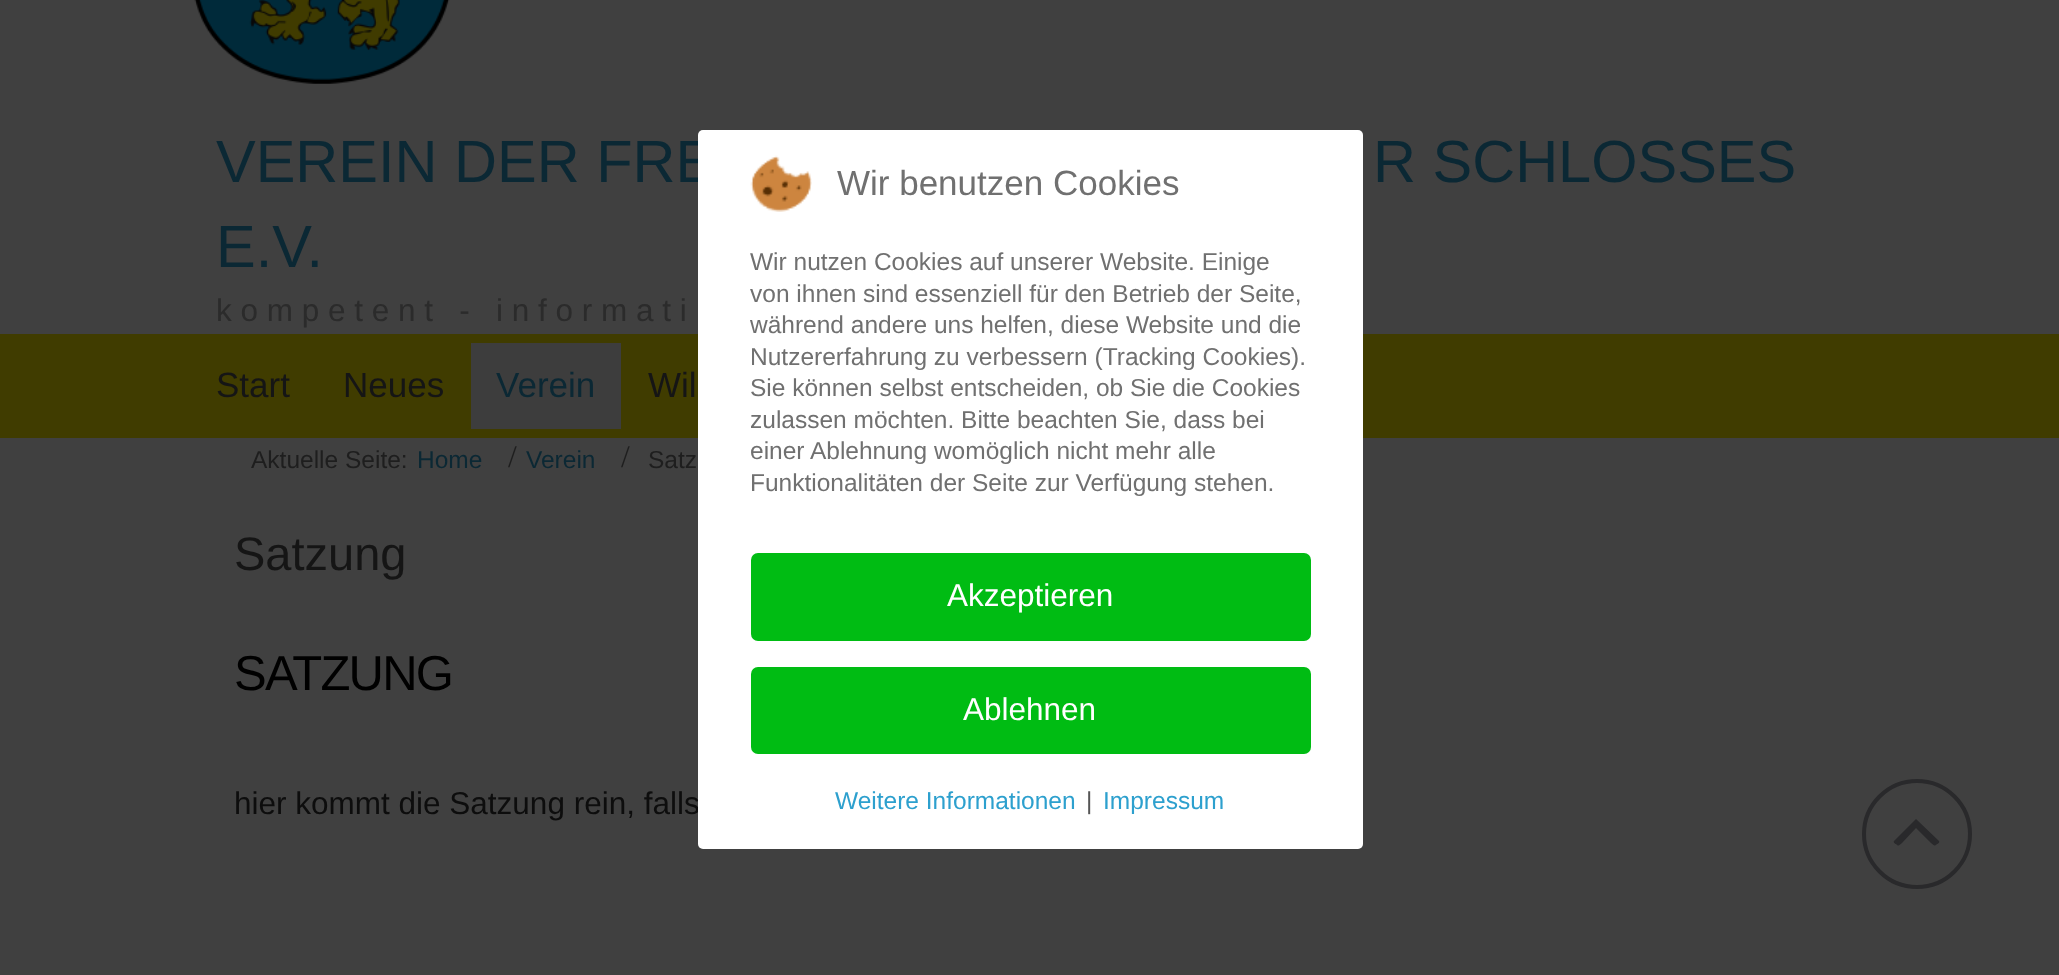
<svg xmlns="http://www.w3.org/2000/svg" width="2059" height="975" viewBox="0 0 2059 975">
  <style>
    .t1 { font: 59.5px Liberation Sans; fill: #0b2834; }
    .t2 { font: 31.5px Liberation Sans; letter-spacing: 8.75px; fill: #2b2b2b; }
    .t3 { font: 35px Liberation Sans; fill: #151515; }
    .t4 { font: 35px Liberation Sans; fill: #0b2834; }
    .t5 { font: 24.5px Liberation Sans; fill: #1e1e1e; }
    .t6 { font: 24.5px Liberation Sans; fill: #0b2834; }
    .t7 { font: 31.5px Liberation Serif; fill: #1e1e1e; }
    .t8 { font: 47px Liberation Sans; fill: #151515; }
    .t9 { font: 49px Liberation Sans; letter-spacing: -1.75px; fill: #000; }
    .t10 { font: 31.5px Liberation Sans; fill: #0d0d0d; }
    .t11 { font: 35px Liberation Sans; fill: #707070; }
    .t12 { font: 24.5px Liberation Sans; fill: #707070; }
    .t13 { font: 31.5px Liberation Sans; fill: #fff; }
    .t14 { font: 24.5px Liberation Sans; fill: #2da0ce; }
    .t15 { font: 24.5px Liberation Sans; fill: #555; }
  </style>
  <rect width="100%" height="100%" fill="#404040"/>
  <image x="194" y="0" width="256" height="84" href="images/1.png"/>
  <text x="216" y="182" class="t1">VEREIN DER FRE</text>
  <text x="1373" y="182" class="t1">R SCHLOSSES</text>
  <text x="216" y="267" class="t1">E.V.</text>
  <text x="216" y="321" class="t2">kompetent - informati</text>
  <rect x="0" y="334" width="2059" height="104" fill="#403c00"/>
  <text x="216" y="397" class="t3">Start</text>
  <text x="343" y="397" class="t3">Neues</text>
  <rect x="471" y="343" width="150" height="86" fill="#3d3d3d"/>
  <text x="496" y="397" class="t4">Verein</text>
  <text x="648" y="397" class="t3">Wil</text>
  <text x="251" y="468" class="t5">Aktuelle Seite:</text>
  <text x="417" y="468" class="t6">Home</text>
  <text x="508" y="467" class="t7">/</text>
  <text x="526" y="468" class="t6">Verein</text>
  <text x="621" y="467" class="t7">/</text>
  <text x="648" y="468" class="t5">Satz</text>
  <text x="234" y="570" class="t8">Satzung</text>
  <text x="234" y="690" class="t9">SATZUNG</text>
  <text x="234" y="814" class="t10">hier kommt die Satzung rein, falls</text>
  <rect x="698" y="130" width="665" height="719" rx="5" fill="#fff"/>
  <image x="750" y="155" width="62" height="57" href="images/2.png"/>
  <text x="837" y="195" class="t11">Wir benutzen Cookies</text>
  <text x="750" y="270" class="t12">Wir nutzen Cookies auf unserer Website. Einige</text>
  <text x="750" y="302" class="t12">von ihnen sind essenziell für den Betrieb der Seite,</text>
  <text x="750" y="333" class="t12">während andere uns helfen, diese Website und die</text>
  <text x="750" y="365" class="t12">Nutzererfahrung zu verbessern (Tracking Cookies).</text>
  <text x="750" y="396" class="t12">Sie können selbst entscheiden, ob Sie die Cookies</text>
  <text x="750" y="428" class="t12">zulassen möchten. Bitte beachten Sie, dass bei</text>
  <text x="750" y="459" class="t12">einer Ablehnung womöglich nicht mehr alle</text>
  <text x="750" y="491" class="t12">Funktionalitäten der Seite zur Verfügung stehen.</text>
  <rect x="751" y="553" width="560" height="88" rx="7" fill="#00bc13"/>
  <text x="947" y="606" class="t13">Akzeptieren</text>
  <rect x="751" y="667" width="560" height="87" rx="7" fill="#00bc13"/>
  <text x="963" y="720" class="t13">Ablehnen</text>
  <text x="835" y="809" class="t14">Weitere Informationen</text>
  <text x="1086" y="809" class="t15">|</text>
  <text x="1103" y="809" class="t14">Impressum</text>
  <circle cx="1917" cy="834" r="53" fill="none" stroke="#29292b" stroke-width="4"/>
  <path d="M1916 828L1902 843C1899 845 1899 847 1896 844C1895 844 1893 842 1894 841L1916 819L1939 841C1940 842 1938 844 1937 844C1934 847 1934 845 1931 843Z" fill="#29292b"/>
</svg>
